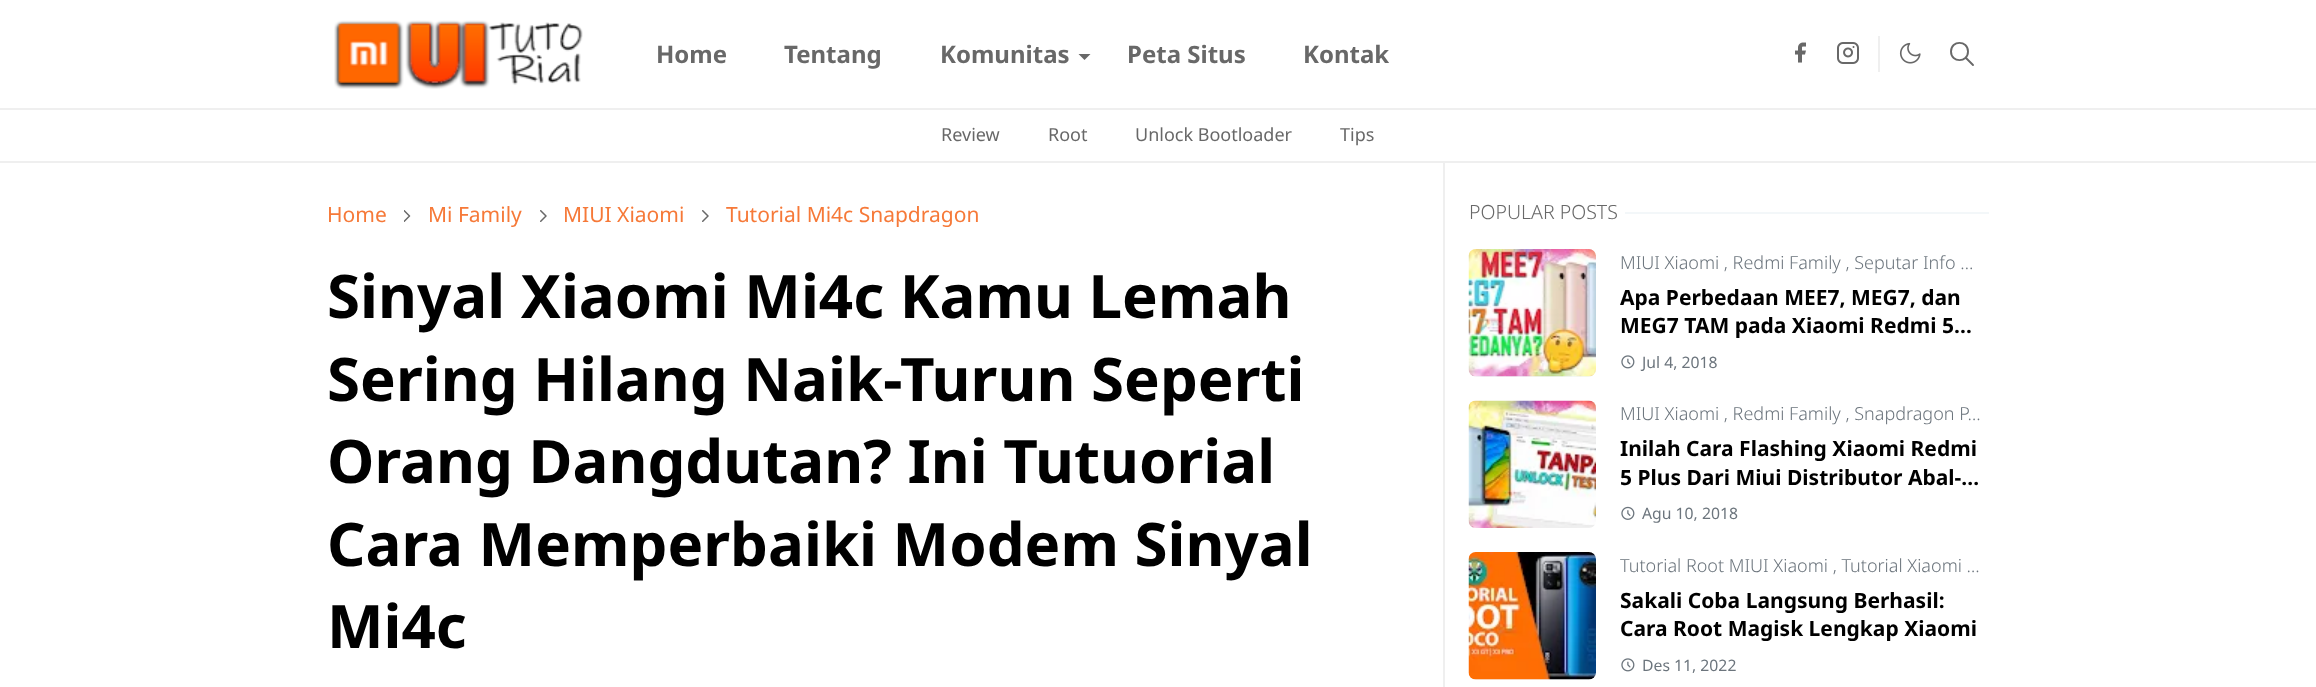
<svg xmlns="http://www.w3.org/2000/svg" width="2316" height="687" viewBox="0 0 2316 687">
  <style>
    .t1 { font: bold 24px Noto Sans; fill: #686868; }
    .t2 { font: 18px Noto Sans; fill: #686868; }
    .t3 { font: 21px Noto Sans; fill: #f67938; }
    .t4 { font: bold 60px Noto Sans; fill: #000; }
    .t5 { font: 300 19.5px Noto Sans; fill: #686868; }
    .t6 { font: 300 18px Noto Sans; fill: #6c757d; }
    .t7 { font: bold 21px Noto Sans; fill: #000; }
    .t8 { font: 15.75px Noto Sans; fill: #6c757d; }
  </style>
  <rect width="100%" height="100%" fill="#fff"/>
  <rect x="0" y="108" width="2316" height="2" fill="#efefef"/>
  <image x="334" y="20" width="249" height="69" href="images/1.png"/>
  <text x="656" y="63" class="t1">Home</text>
  <text x="784" y="63" class="t1">Tentang</text>
  <text x="940" y="63" class="t1">Komunitas</text>
  <path d="M1078.5 54H1090.5L1084.5 60Z" fill="#686868"/>
  <text x="1127" y="63" class="t1">Peta Situs</text>
  <text x="1303" y="63" class="t1">Kontak</text>
  <rect x="1878" y="36" width="2" height="36" fill="#efefef"/>
  <image x="1795" y="42" width="11" height="21" href="images/2.png"/>
  <image x="1837" y="42" width="22" height="22" href="images/3.png"/>
  <image x="1899" y="42" width="22" height="22" href="images/4.png"/>
  <path d="M1973 65L1966 58M1968 51.5C1968 63 1951 63 1951 51.5C1951 40 1968 40 1968 51.5Z" fill="none" stroke="#686868" stroke-width="1.9" stroke-linecap="round" stroke-linejoin="round"/>
  <rect x="0" y="161" width="2316" height="2" fill="#efefef"/>
  <text x="941" y="141" class="t2">Review</text>
  <text x="1048" y="141" class="t2">Root</text>
  <text x="1135" y="141" class="t2">Unlock Bootloader</text>
  <text x="1340" y="141" class="t2">Tips</text>
  <text x="327" y="222" class="t3">Home</text>
  <image x="404" y="210" width="7" height="12" href="images/5.png"/>
  <text x="428" y="222" class="t3">Mi Family</text>
  <image x="540" y="210" width="7" height="12" href="images/6.png"/>
  <text x="563" y="222" class="t3">MIUI Xiaomi</text>
  <image x="702" y="210" width="7" height="12" href="images/6.png"/>
  <text x="726" y="222" class="t3">Tutorial Mi4c Snapdragon</text>
  <text x="327" y="318" class="t4">Sinyal Xiaomi Mi4c Kamu Lemah</text>
  <text x="327" y="401" class="t4">Sering Hilang Naik-Turun Seperti</text>
  <text x="327" y="483" class="t4">Orang Dangdutan? Ini Tutuorial</text>
  <text x="327" y="566" class="t4">Cara Memperbaiki Modem Sinyal</text>
  <text x="327" y="648" class="t4">Mi4c</text>
  <rect x="1443" y="162" width="2" height="525" fill="#efefef"/>
  <text x="1469" y="219" class="t5">POPULAR POSTS</text>
  <rect x="1625" y="212" width="364" height="2" fill="#f3f7f9"/>
  <rect x="1469" y="249" width="127" height="128" rx="8" fill="#f3f7f9"/>
  <image x="1468" y="249" width="128" height="128" href="images/7.png"/>
  <text x="1620" y="269" class="t6">MIUI Xiaomi , Redmi Family , Seputar Info …</text>
  <text x="1620" y="305" class="t7">Apa Perbedaan MEE7, MEG7, dan</text>
  <text x="1620" y="333" class="t7">MEG7 TAM pada Xiaomi Redmi 5…</text>
  <image x="1621" y="355" width="14" height="14" href="images/8.png"/>
  <text x="1642" y="368" class="t8">Jul 4, 2018</text>
  <image x="1468" y="400" width="128" height="128" href="images/9.png"/>
  <text x="1620" y="420" class="t6">MIUI Xiaomi , Redmi Family , Snapdragon P…</text>
  <text x="1620" y="456" class="t7">Inilah Cara Flashing Xiaomi Redmi</text>
  <text x="1620" y="485" class="t7">5 Plus Dari Miui Distributor Abal-…</text>
  <image x="1621" y="506" width="14" height="14" href="images/10.png"/>
  <text x="1642" y="519" class="t8">Agu 10, 2018</text>
  <rect x="1469" y="552" width="127" height="128" rx="8" fill="#f3f7f9"/>
  <image x="1468" y="552" width="128" height="128" href="images/11.png"/>
  <text x="1620" y="572" class="t6">Tutorial Root MIUI Xiaomi , Tutorial Xiaomi …</text>
  <text x="1620" y="608" class="t7">Sakali Coba Langsung Berhasil:</text>
  <text x="1620" y="636" class="t7">Cara Root Magisk Lengkap Xiaomi</text>
  <image x="1621" y="658" width="14" height="14" href="images/8.png"/>
  <text x="1642" y="671" class="t8">Des 11, 2022</text>
</svg>
